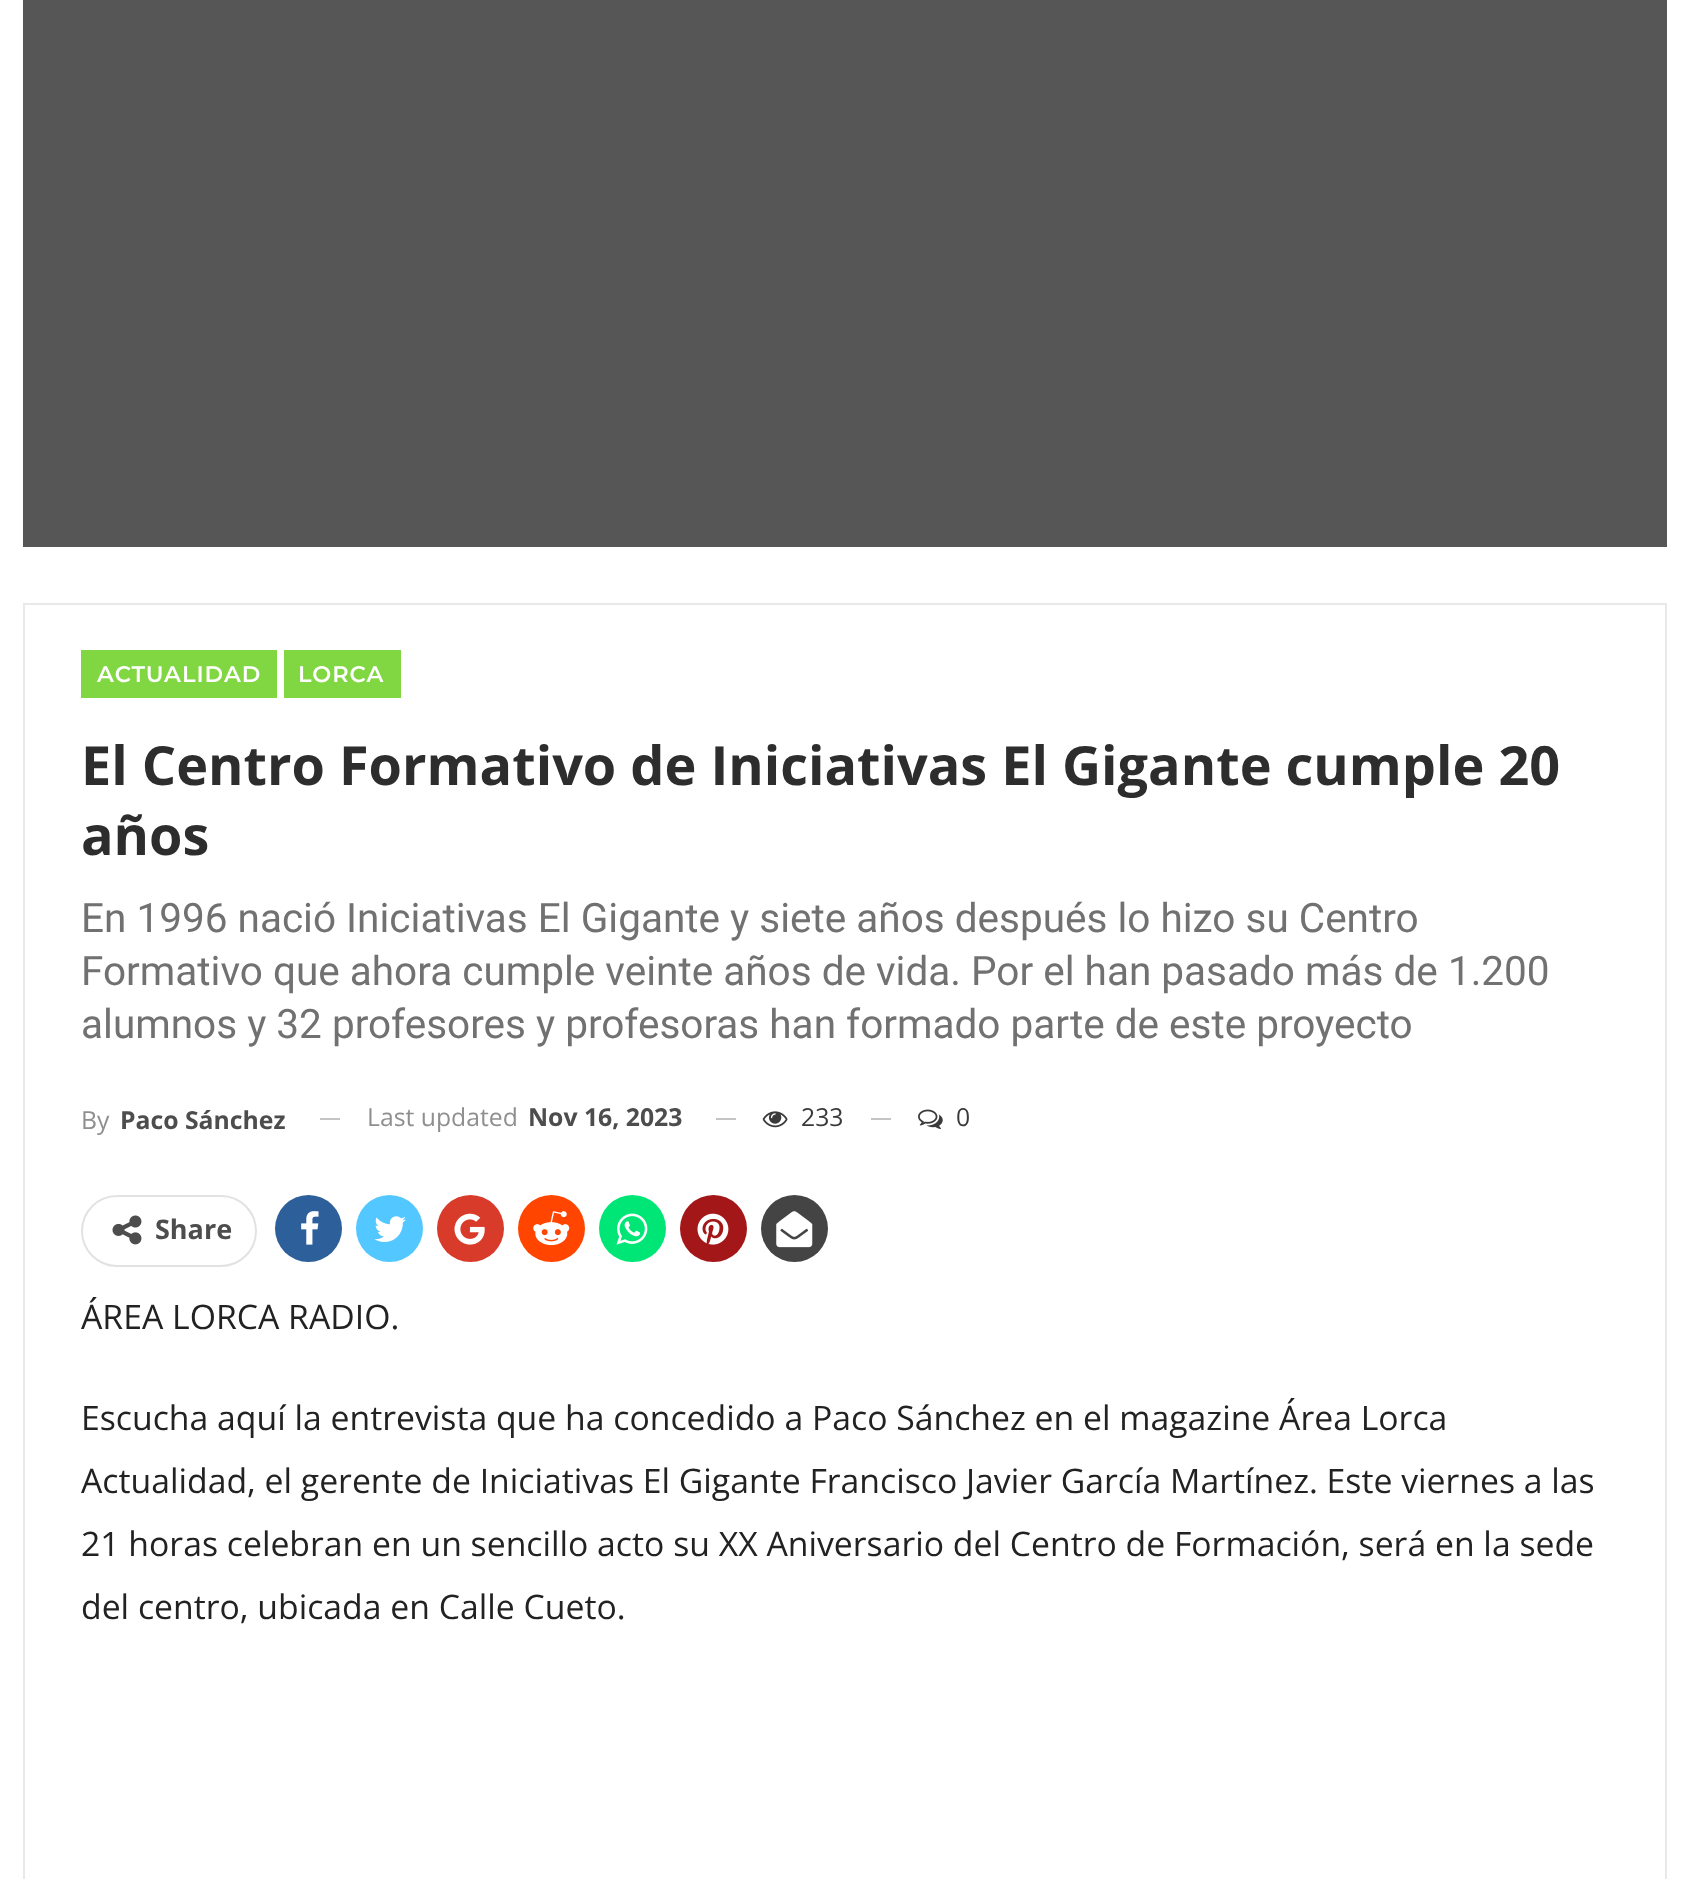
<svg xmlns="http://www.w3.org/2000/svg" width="1689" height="1879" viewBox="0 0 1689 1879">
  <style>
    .t1 { font: 600 22.5px Montserrat; letter-spacing: 1px; fill: #fff; }
    .t2 { font: bold 54px Open Sans; fill: #2d2d2d; }
    .t3 { font: 40.5px Roboto; fill: #717171; }
    .t4 { font: 24.75px Open Sans; fill: #8f8f8f; }
    .t5 { font: bold 24.75px Open Sans; fill: #4d4d4d; }
    .t6 { font: 24.75px Open Sans; fill: #3a3a3a; }
    .t7 { font: bold 27px Open Sans; fill: #4d4d4d; }
    .t8 { font: 33.75px Open Sans; fill: #222; }
  </style>
  <rect width="100%" height="100%" fill="#fff"/>
  <rect x="23" y="0" width="1644" height="547" fill="#565656"/>
  <rect x="24" y="604" width="1642" height="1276" fill="none" stroke="#e9e9e9" stroke-width="2"/>
  <rect x="81" y="650" width="196" height="48" fill="#81d742"/>
  <text x="97" y="682" class="t1">ACTUALIDAD</text>
  <rect x="284" y="650" width="117" height="48" fill="#81d742"/>
  <text x="298" y="682" class="t1">LORCA</text>
  <text x="81" y="785" class="t2">El Centro Formativo de Iniciativas El Gigante cumple 20</text>
  <text x="81" y="855" class="t2">años</text>
  <text x="81" y="932" class="t3">En 1996 nació Iniciativas El Gigante y siete años después lo hizo su Centro</text>
  <text x="81" y="985" class="t3">Formativo que ahora cumple veinte años de vida. Por el han pasado más de 1.200</text>
  <text x="81" y="1038" class="t3">alumnos y 32 profesores y profesoras han formado parte de este proyecto</text>
  <text x="81" y="1129" class="t4">By</text>
  <text x="120" y="1129" class="t5">Paco Sánchez</text>
  <rect x="320" y="1118" width="20" height="2" fill="#c4c4c4"/>
  <text x="367" y="1126" class="t4">Last updated</text>
  <text x="528" y="1126" class="t5">Nov 16, 2023</text>
  <rect x="716" y="1118" width="20" height="2" fill="#c4c4c4"/>
  <image x="762" y="1111" width="26" height="17" href="images/1.png"/>
  <text x="801" y="1126" class="t6">233</text>
  <rect x="871" y="1118" width="20" height="2" fill="#c4c4c4"/>
  <image x="918" y="1109" width="25" height="20" href="images/2.png"/>
  <text x="956" y="1126" class="t6">0</text>
  <rect x="82" y="1196" width="174" height="70" rx="35" fill="none" stroke="#e2e2e2" stroke-width="2"/>
  <image x="112" y="1215" width="30" height="30" href="images/3.png"/>
  <text x="155" y="1239" class="t7">Share</text>
  <circle cx="308.5" cy="1228.5" r="33.5" fill="#2d5f9a"/>
  <image x="301" y="1211" width="18" height="34" href="images/4.png"/>
  <circle cx="389.5" cy="1228.5" r="33.5" fill="#53c7ff"/>
  <image x="374" y="1216" width="32" height="26" href="images/5.png"/>
  <circle cx="470.5" cy="1228.5" r="33.5" fill="#d93b2b"/>
  <image x="454" y="1213" width="31" height="32" href="images/6.png"/>
  <circle cx="551.5" cy="1228.5" r="33.5" fill="#ff4500"/>
  <image x="533" y="1211" width="37" height="35" href="images/7.png"/>
  <circle cx="632.5" cy="1228.5" r="33.5" fill="#00e676"/>
  <image x="616" y="1213" width="32" height="32" href="images/8.png"/>
  <circle cx="713.5" cy="1228.5" r="33.5" fill="#a41719"/>
  <image x="697" y="1213" width="32" height="32" href="images/9.png"/>
  <circle cx="794.5" cy="1228.5" r="33.5" fill="#444"/>
  <image x="776" y="1211" width="37" height="37" href="images/10.png"/>
  <text x="81" y="1329" class="t8">ÁREA LORCA RADIO.</text>
  <text x="81" y="1430" class="t8">Escucha aquí la entrevista que ha concedido a Paco Sánchez en el magazine Área Lorca</text>
  <text x="81" y="1493" class="t8">Actualidad, el gerente de Iniciativas El Gigante Francisco Javier García Martínez. Este viernes a las</text>
  <text x="81" y="1556" class="t8">21 horas celebran en un sencillo acto su XX Aniversario del Centro de Formación, será en la sede</text>
  <text x="81" y="1619" class="t8">del centro, ubicada en Calle Cueto.</text>
</svg>
